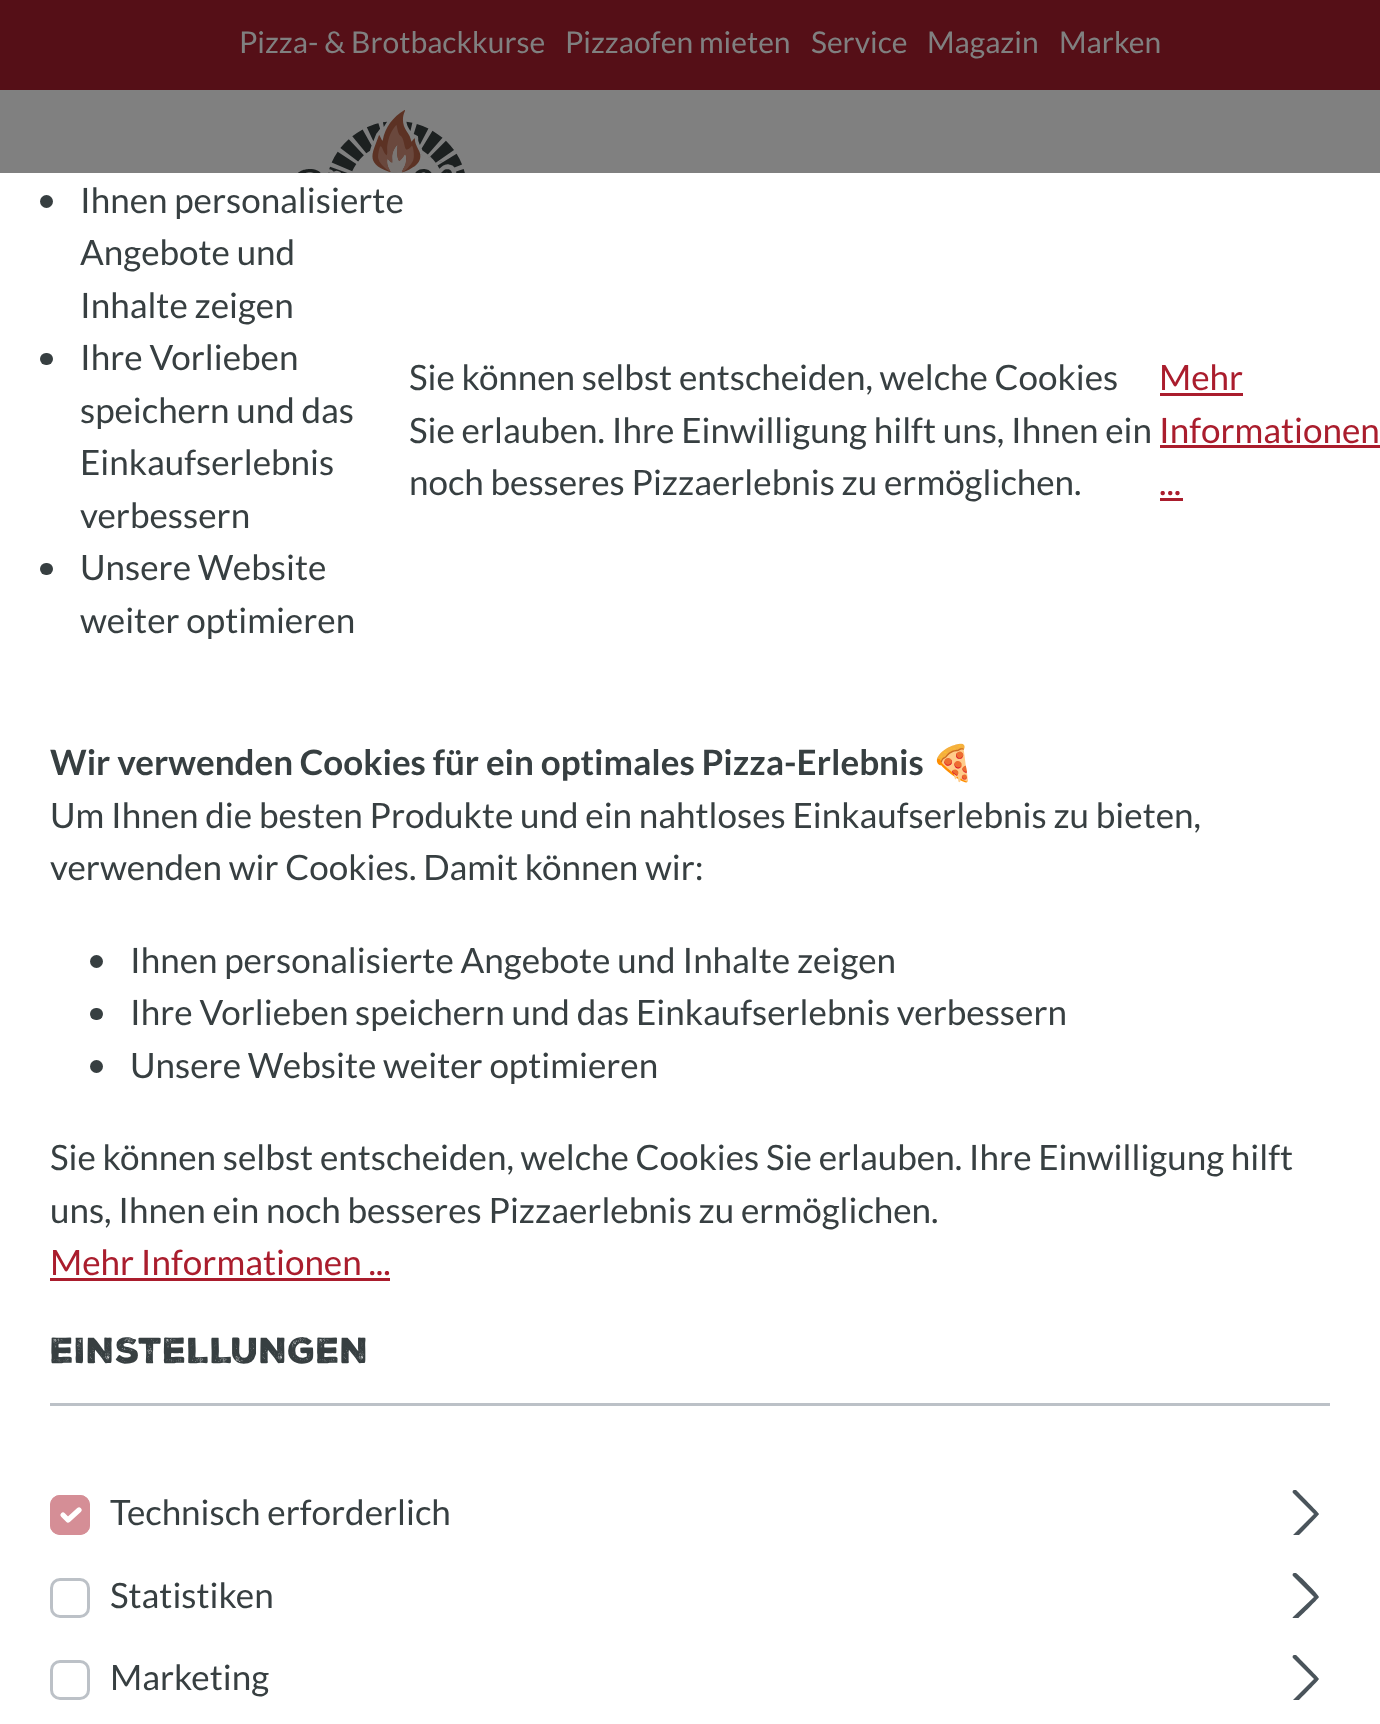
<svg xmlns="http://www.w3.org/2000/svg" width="1380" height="1724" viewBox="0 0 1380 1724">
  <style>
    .t1 { font: 30px Lato; fill: #808080; }
    .t2 { font: 35px Lato; fill: #373f41; }
    .t3 { font: 35px Lato; fill: #aa1d2d; }
    .t4 { font: bold 35px Lato; fill: #373f41; }
    .t5 { font: bold 35px Noto Color Emoji; fill: #373f41; }
    .t6 { font: 900 35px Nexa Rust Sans; fill: #373f41; }
  </style>
  <defs>
    <clipPath id="clip1"><rect x="1283" y="1490" width="47" height="45"/></clipPath>
    <clipPath id="clip2"><rect x="1283" y="1573" width="47" height="45"/></clipPath>
    <clipPath id="clip3"><rect x="1283" y="1655" width="47" height="45"/></clipPath>
  </defs>
  <rect width="100%" height="100%" fill="#808080"/>
  <rect x="0" y="0" width="1380" height="90" fill="#550f17"/>
  <text x="239" y="53" class="t1">Pizza- &amp; Brotbackkurse</text>
  <text x="565" y="53" class="t1">Pizzaofen mieten</text>
  <text x="811" y="53" class="t1">Service</text>
  <text x="927" y="53" class="t1">Magazin</text>
  <text x="1059" y="53" class="t1">Marken</text>
  <image x="298" y="110" width="167" height="63" href="images/1.png"/>
  <rect x="0" y="173" width="1380" height="1551" fill="#fff"/>
  <circle cx="46.5" cy="201.5" r="6.5" fill="#373f41"/>
  <text x="80" y="213" class="t2">Ihnen personalisierte</text>
  <text x="80" y="265" class="t2">Angebote und</text>
  <text x="80" y="318" class="t2">Inhalte zeigen</text>
  <rect x="40" y="353" width="13" height="12" rx="6" fill="#373f41"/>
  <text x="80" y="370" class="t2">Ihre Vorlieben</text>
  <text x="80" y="423" class="t2">speichern und das</text>
  <text x="80" y="475" class="t2">Einkaufserlebnis</text>
  <text x="80" y="528" class="t2">verbessern</text>
  <rect x="40" y="563" width="13" height="12" rx="6" fill="#373f41"/>
  <text x="80" y="580" class="t2">Unsere Website</text>
  <text x="80" y="633" class="t2">weiter optimieren</text>
  <text x="409" y="390" class="t2">Sie können selbst entscheiden, welche Cookies</text>
  <text x="1159" y="390" class="t3">Mehr</text>
  <rect x="1160" y="393" width="83" height="3" fill="#aa1d2d"/>
  <text x="1159" y="443" class="t3">Informationen</text>
  <rect x="1160" y="445" width="220" height="3" fill="#aa1d2d"/>
  <text x="1159" y="495" class="t3">...</text>
  <rect x="1160" y="498" width="23" height="3" fill="#aa1d2d"/>
  <text x="409" y="443" class="t2">Sie erlauben. Ihre Einwilligung hilft uns, Ihnen ein</text>
  <text x="409" y="495" class="t2">noch besseres Pizzaerlebnis zu ermöglichen.</text>
  <rect x="50" y="1403" width="1280" height="3" fill="#bcc1c7"/>
  <text x="50" y="775" class="t4">Wir verwenden Cookies für ein optimales Pizza-Erlebnis</text>
  <text x="931" y="775" class="t5">🍕</text>
  <text x="50" y="828" class="t2">Um Ihnen die besten Produkte und ein nahtloses Einkaufserlebnis zu bieten,</text>
  <text x="50" y="880" class="t2">verwenden wir Cookies. Damit können wir:</text>
  <circle cx="96.5" cy="961.5" r="6.5" fill="#373f41"/>
  <text x="130" y="973" class="t2">Ihnen personalisierte Angebote und Inhalte zeigen</text>
  <rect x="90" y="1008" width="13" height="12" rx="6" fill="#373f41"/>
  <text x="130" y="1025" class="t2">Ihre Vorlieben speichern und das Einkaufserlebnis verbessern</text>
  <circle cx="96.5" cy="1066.5" r="6.5" fill="#373f41"/>
  <text x="130" y="1078" class="t2">Unsere Website weiter optimieren</text>
  <text x="50" y="1170" class="t2">Sie können selbst entscheiden, welche Cookies Sie erlauben. Ihre Einwilligung hilft</text>
  <text x="50" y="1223" class="t2">uns, Ihnen ein noch besseres Pizzaerlebnis zu ermöglichen.</text>
  <text x="50" y="1275" class="t3">Mehr Informationen ...</text>
  <rect x="50" y="1278" width="340" height="3" fill="#aa1d2d"/>
  <text x="50" y="1363" class="t6">EINSTELLUNGEN</text>
  <rect x="50" y="1495" width="40" height="40" rx="10" fill="#d58e96"/>
  <path d="M63 1515L68 1520L79 1510" fill="none" stroke="#fff" stroke-width="5.2" stroke-linecap="round" stroke-linejoin="round"/>
  <rect x="51.5" y="1496.5" width="37" height="37" rx="8.5" fill="none" stroke="#d58e96" stroke-width="3"/>
  <text x="110" y="1525" class="t2">Technisch erforderlich</text>
  <g clip-path="url(#clip1)">
    <path d="M1314 1514L1293 1535C1292 1536 1293 1538 1294 1538H1296C1298 1536 1319 1515 1319 1514C1319 1513 1298 1492 1296 1490H1294C1293 1490 1292 1492 1293 1493Z" fill="#4a545b" fill-rule="evenodd"/>
  </g>
  <rect x="51.5" y="1579.5" width="37" height="37" rx="8.5" fill="none" stroke="#bcc1c7" stroke-width="3"/>
  <text x="110" y="1608" class="t2">Statistiken</text>
  <g clip-path="url(#clip2)">
    <path d="M1314 1597L1293 1617C1292 1618 1293 1620 1294 1621L1296 1620C1298 1619 1319 1598 1319 1597C1319 1595 1298 1574 1296 1573H1294C1293 1573 1292 1575 1293 1576Z" fill="#4a545b" fill-rule="evenodd"/>
  </g>
  <rect x="51.5" y="1661.5" width="37" height="37" rx="8.5" fill="none" stroke="#bcc1c7" stroke-width="3"/>
  <text x="110" y="1690" class="t2">Marketing</text>
  <g clip-path="url(#clip3)">
    <path d="M1314 1679L1293 1700C1292 1701 1293 1703 1294 1703H1296C1298 1701 1319 1680 1319 1679C1319 1678 1298 1657 1296 1655H1294C1293 1655 1292 1657 1293 1658Z" fill="#4a545b" fill-rule="evenodd"/>
  </g>
</svg>
